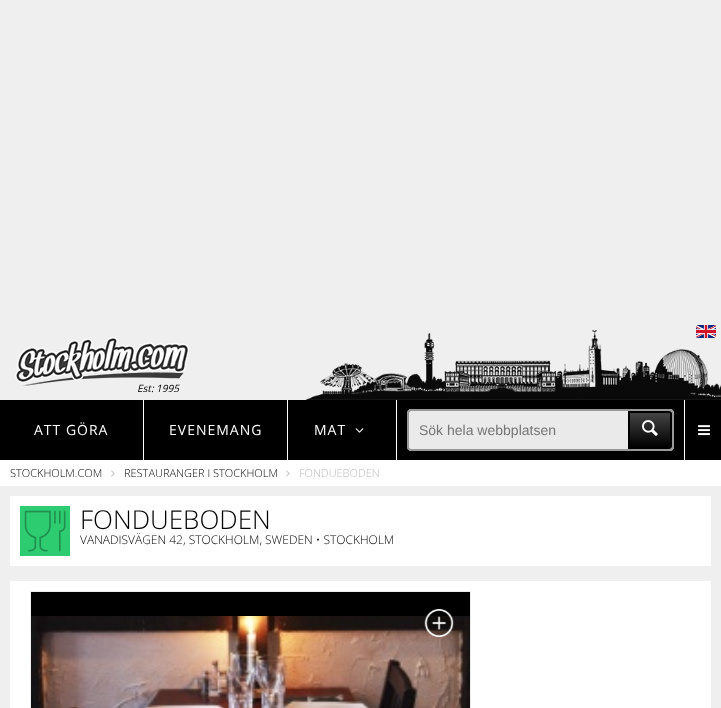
<svg xmlns="http://www.w3.org/2000/svg" width="721" height="708" viewBox="0 0 721 708">
  <style>
    .t1 { font: italic 10px Open Sans; fill: #000; }
    .t2 { font: 14px Open Sans; letter-spacing: 1px; fill: #fff; }
    .t3 { font: 14px Liberation Sans; fill: #757575; }
    .t4 { font: 300 11px Open Sans; fill: #000; }
    .t5 { font: 300 11px Open Sans; fill: #bbb; }
    .t6 { font: 300 26px Open Sans; fill: #000; }
    .t7 { font: 300 12px Open Sans; fill: #000; }
  </style>
  <defs>
    <linearGradient id="g1" gradientUnits="userSpaceOnUse" x1="650" y1="413" x2="650" y2="447"><stop offset="0" stop-color="#444"/><stop offset="1" stop-color="#000"/></linearGradient>
  </defs>
  <rect width="100%" height="100%" fill="#efefef"/>
  <image x="305" y="330" width="416" height="70" href="images/3.png"/>
  <image x="696" y="325" width="20" height="13" href="images/1.png"/>
  <text x="137" y="392" class="t1">Est: 1995</text>
  <image x="15" y="337" width="174" height="49" href="images/2.png"/>
  <rect x="0" y="400" width="143" height="60" fill="#000"/>
  <rect x="143" y="400" width="1" height="60" fill="#fff"/>
  <text x="34" y="435" class="t2">ATT GÖRA</text>
  <rect x="144" y="400" width="143" height="60" fill="#000"/>
  <rect x="287" y="400" width="1" height="60" fill="#fff"/>
  <text x="169" y="435" class="t2">EVENEMANG</text>
  <rect x="288" y="400" width="108" height="60" fill="#000"/>
  <rect x="396" y="400" width="1" height="60" fill="#fff"/>
  <text x="314" y="435" class="t2">MAT</text>
  <image x="355" y="428" width="9" height="5" href="images/4.png"/>
  <rect x="397" y="400" width="287" height="60" fill="#000"/>
  <rect x="684" y="400" width="1" height="60" fill="#fff"/>
  <path d="M411 409H628V451H411C409 451 407 449 407 447V413C407 411 409 409 411 409Z" fill="#eaeaea"/>
  <path d="M411 409H628V451H411C409 451 407 449 407 447V413C407 411 409 409 411 409ZM411 411H628V449H411C410 449 409 448 409 447V413C409 412 410 411 411 411Z" fill="#999" fill-rule="evenodd"/>
  <text x="419" y="435" class="t3">Sök hela webbplatsen</text>
  <path d="M628 409H670C672 409 674 411 674 413V447C674 449 672 451 670 451H628Z" fill="#eaeaea"/>
  <path d="M628 409H670C672 409 674 411 674 413V447C674 449 672 451 670 451H628ZM628 411H670C671 411 672 412 672 413V447C672 448 671 449 670 449H628Z" fill="#999" fill-rule="evenodd"/>
  <rect x="630" y="413" width="42" height="34" fill="url(#g1)"/>
  <path d="M629 412H669C670 412 671 413 671 414V446C671 447 670 448 669 448H629Z" fill="none" stroke="#000" stroke-width="2"/>
  <image x="642" y="420" width="16" height="16" href="images/5.png"/>
  <rect x="685" y="400" width="36" height="60" fill="#000"/>
  <image x="698" y="425" width="12" height="11" href="images/6.png"/>
  <rect x="0" y="460" width="721" height="26" fill="#fff"/>
  <text x="10" y="477" class="t4">STOCKHOLM.COM</text>
  <image x="111" y="470" width="4" height="7" href="images/7.png"/>
  <text x="124" y="477" class="t4">RESTAURANGER I STOCKHOLM</text>
  <image x="286" y="470" width="4" height="7" href="images/7.png"/>
  <text x="299" y="477" class="t5">FONDUEBODEN</text>
  <rect x="10" y="496" width="701" height="70" fill="#fff"/>
  <image x="20" y="506" width="50" height="50" href="images/8.png"/>
  <text x="80" y="529" class="t6">FONDUEBODEN</text>
  <text x="80" y="544" class="t7">VANADISVÄGEN 42, STOCKHOLM, SWEDEN • STOCKHOLM</text>
  <rect x="10" y="581" width="701" height="127" fill="#fff"/>
  <rect x="31" y="592" width="439" height="24" fill="#000"/>
  <rect x="30" y="591" width="441" height="1" fill="#ededed"/>
  <rect x="470" y="591" width="1" height="117" fill="#ededed"/>
  <rect x="30" y="591" width="1" height="117" fill="#ededed"/>
  <image x="31" y="616" width="439" height="92" href="images/10.png"/>
  <image x="424" y="609" width="30" height="28" href="images/9.png"/>
</svg>
